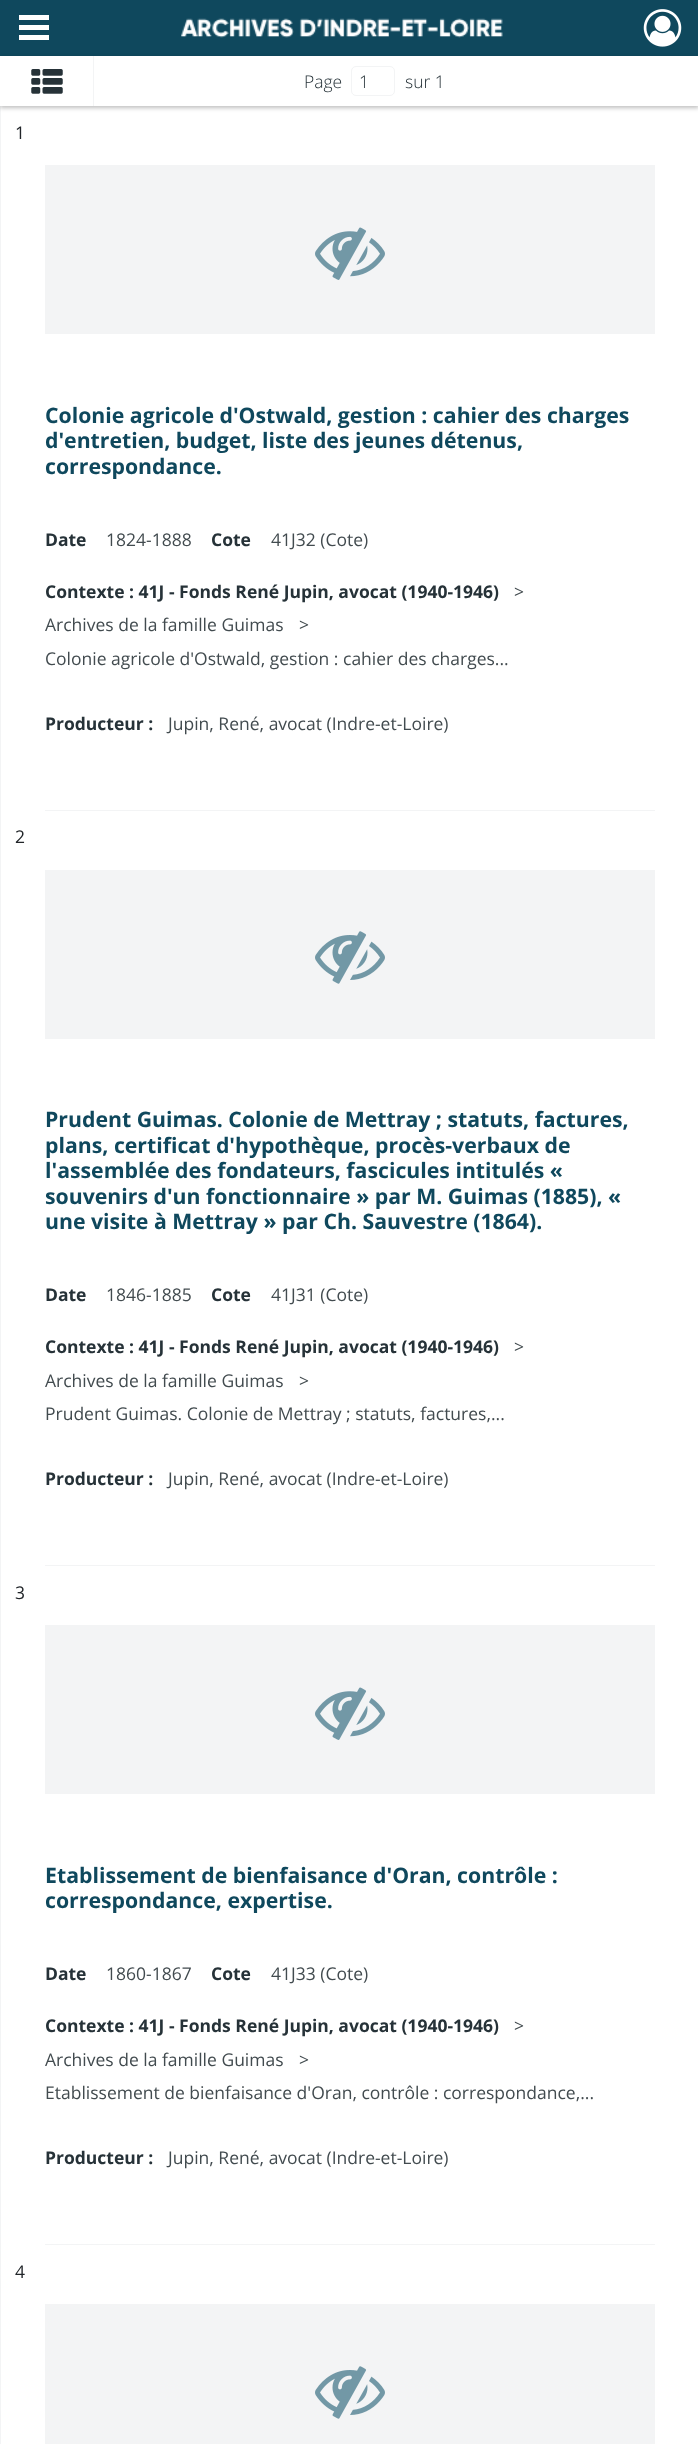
<svg xmlns="http://www.w3.org/2000/svg" width="698" height="2444" viewBox="0 0 698 2444">
  <style>
    .t1 { font: 300 17.5px Open Sans; fill: #263238; }
    .t2 { font: 17.5px Open Sans; fill: #212529; }
    .t3 { font: bold 21.25px Open Sans; fill: #0f485d; }
    .t4 { font: bold 17.5px Open Sans; fill: #263238; }
    .t5 { font: 17.5px Open Sans; fill: #424b4f; }
  </style>
  <rect width="100%" height="100%" fill="#fff"/>
  <rect x="0" y="0" width="698" height="56" fill="#0f485d"/>
  <rect x="19" y="15" width="30" height="5" fill="#fff"/>
  <rect x="19" y="25" width="30" height="5" fill="#fff"/>
  <rect x="19" y="35" width="30" height="5" fill="#fff"/>
  <image x="181" y="18" width="322" height="20" href="images/1.png"/>
  <image x="643" y="9" width="39" height="38" href="images/2.png"/>
  <rect x="0" y="106" width="1" height="2338" fill="#f3f4f5"/>
  <rect x="0" y="58" width="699" height="50" fill="#00000040" filter="blur(2px)"/>
  <rect x="0" y="56" width="698" height="50" fill="#fff"/>
  <rect x="93" y="56" width="1" height="50" fill="#f3f4f5"/>
  <image x="31" y="69" width="32" height="25" href="images/3.png"/>
  <text x="304" y="88" class="t1">Page</text>
  <rect x="351.5" y="66.5" width="43" height="29" rx="4.5" fill="none" stroke="#f3f4f5"/>
  <text x="359" y="88" class="t1">1</text>
  <text x="405" y="88" class="t1">sur 1</text>
  <rect x="45" y="810" width="610" height="1" fill="#f3f4f5"/>
  <text x="15" y="139" class="t2">1</text>
  <rect x="45" y="165" width="610" height="169" fill="#f3f4f5"/>
  <image x="315" y="227" width="70" height="53" href="images/4.png"/>
  <text x="45" y="423" class="t3">Colonie agricole d'Ostwald, gestion : cahier des charges</text>
  <text x="45" y="448" class="t3">d'entretien, budget, liste des jeunes détenus,</text>
  <text x="45" y="474" class="t3">correspondance.</text>
  <text x="45" y="546" class="t4">Date</text>
  <text x="106" y="546" class="t5">1824-1888</text>
  <text x="211" y="546" class="t4">Cote</text>
  <text x="271" y="546" class="t5">41J32 (Cote)</text>
  <text x="45" y="598" class="t4">Contexte : 41J - Fonds René Jupin, avocat (1940-1946)</text>
  <text x="514" y="598" class="t5">&gt;</text>
  <text x="45" y="631" class="t5">Archives de la famille Guimas</text>
  <text x="299" y="631" class="t5">&gt;</text>
  <text x="45" y="665" class="t5">Colonie agricole d'Ostwald, gestion : cahier des charges...</text>
  <text x="45" y="730" class="t4">Producteur :</text>
  <text x="168" y="730" class="t5">Jupin, René, avocat (Indre-et-Loire)</text>
  <rect x="45" y="1565" width="610" height="1" fill="#f3f4f5"/>
  <text x="15" y="843" class="t2">2</text>
  <rect x="45" y="870" width="610" height="169" fill="#f3f4f5"/>
  <image x="315" y="931" width="70" height="53" href="images/5.png"/>
  <text x="45" y="1127" class="t3">Prudent Guimas. Colonie de Mettray ; statuts, factures,</text>
  <text x="45" y="1153" class="t3">plans, certificat d'hypothèque, procès-verbaux de</text>
  <text x="45" y="1178" class="t3">l'assemblée des fondateurs, fascicules intitulés «</text>
  <text x="45" y="1204" class="t3">souvenirs d'un fonctionnaire » par M. Guimas (1885), «</text>
  <text x="45" y="1229" class="t3">une visite à Mettray » par Ch. Sauvestre (1864).</text>
  <text x="45" y="1301" class="t4">Date</text>
  <text x="106" y="1301" class="t5">1846-1885</text>
  <text x="211" y="1301" class="t4">Cote</text>
  <text x="271" y="1301" class="t5">41J31 (Cote)</text>
  <text x="45" y="1353" class="t4">Contexte : 41J - Fonds René Jupin, avocat (1940-1946)</text>
  <text x="514" y="1353" class="t5">&gt;</text>
  <text x="45" y="1387" class="t5">Archives de la famille Guimas</text>
  <text x="299" y="1387" class="t5">&gt;</text>
  <text x="45" y="1420" class="t5">Prudent Guimas. Colonie de Mettray ; statuts, factures,...</text>
  <text x="45" y="1485" class="t4">Producteur :</text>
  <text x="168" y="1485" class="t5">Jupin, René, avocat (Indre-et-Loire)</text>
  <rect x="45" y="2244" width="610" height="1" fill="#f3f4f5"/>
  <text x="15" y="1599" class="t2">3</text>
  <rect x="45" y="1625" width="610" height="169" fill="#f3f4f5"/>
  <image x="315" y="1687" width="70" height="53" href="images/4.png"/>
  <text x="45" y="1883" class="t3">Etablissement de bienfaisance d'Oran, contrôle :</text>
  <text x="45" y="1908" class="t3">correspondance, expertise.</text>
  <text x="45" y="1980" class="t4">Date</text>
  <text x="106" y="1980" class="t5">1860-1867</text>
  <text x="211" y="1980" class="t4">Cote</text>
  <text x="271" y="1980" class="t5">41J33 (Cote)</text>
  <text x="45" y="2032" class="t4">Contexte : 41J - Fonds René Jupin, avocat (1940-1946)</text>
  <text x="514" y="2032" class="t5">&gt;</text>
  <text x="45" y="2066" class="t5">Archives de la famille Guimas</text>
  <text x="299" y="2066" class="t5">&gt;</text>
  <text x="45" y="2099" class="t5">Etablissement de bienfaisance d'Oran, contrôle : correspondance,...</text>
  <text x="45" y="2164" class="t4">Producteur :</text>
  <text x="168" y="2164" class="t5">Jupin, René, avocat (Indre-et-Loire)</text>
  <text x="15" y="2278" class="t2">4</text>
  <rect x="45" y="2304" width="610" height="140" fill="#f3f4f5"/>
  <image x="315" y="2366" width="70" height="53" href="images/5.png"/>
</svg>
